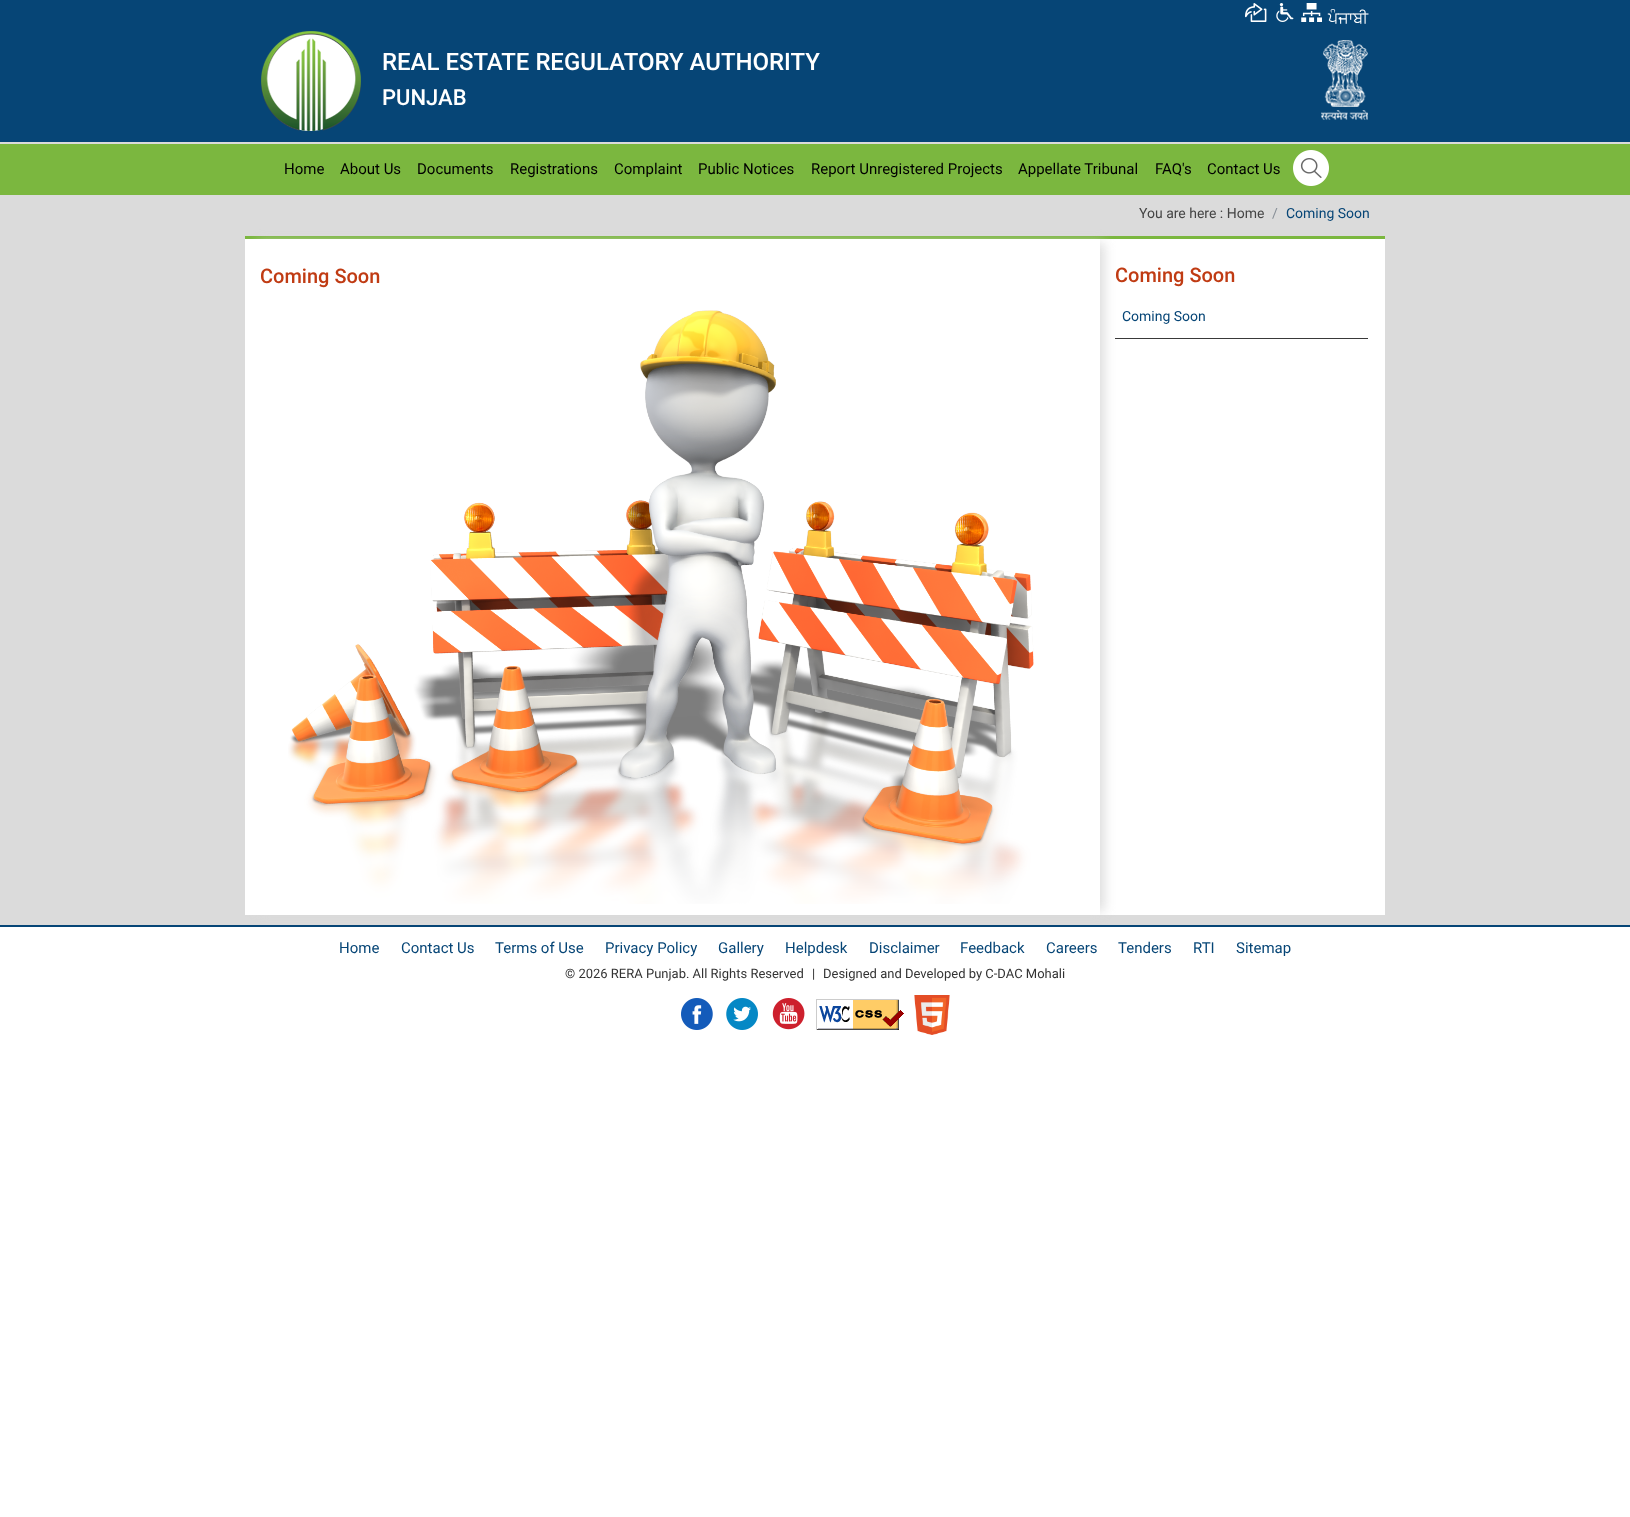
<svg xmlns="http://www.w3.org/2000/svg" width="1630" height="1517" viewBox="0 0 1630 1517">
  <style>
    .t1 { font: 16px FreeSans; fill: #fff; }
    .t2 { font: 500 24px Roboto; fill: #fff; }
    .t3 { font: 500 22px Roboto; fill: #fff; }
    .t4 { font: 15px Roboto; fill: #000; }
    .t5 { font: 14px Roboto; fill: #444; }
    .t6 { font: 14px Roboto; fill: #868e96; }
    .t7 { font: 14px Roboto; fill: #064576; }
    .t8 { font: 500 20px Roboto; fill: #c03b13; }
    .t9 { font: 15px Roboto; fill: #064576; }
    .t10 { font: 13px Roboto; fill: #333; }
  </style>
  <defs>
    <clipPath id="clip1"><path d="M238 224H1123V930H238ZM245 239H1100V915H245Z" clip-rule="evenodd"/></clipPath>
  </defs>
  <rect width="100%" height="100%" fill="#fff"/>
  <rect x="0" y="142" width="1630" height="783" fill="#dbdbdb"/>
  <rect x="0" y="0" width="1630" height="142" fill="#064576"/>
  <image x="1245" y="3" width="22" height="19" href="images/1.png"/>
  <image x="1276" y="3" width="18" height="19" href="images/2.png"/>
  <image x="1301" y="3" width="21" height="19" href="images/3.png"/>
  <text x="1328" y="23" class="t1">ਪੰਜਾਬੀ</text>
  <image x="261" y="31" width="100" height="100" href="images/4.png"/>
  <image x="1321" y="40" width="47" height="80" href="images/5.png"/>
  <text x="382" y="70" class="t2">REAL ESTATE REGULATORY AUTHORITY</text>
  <text x="382" y="105" class="t3">PUNJAB</text>
  <rect x="0" y="144" width="1630" height="51" fill="#7bb73f"/>
  <text x="284" y="174" class="t4">Home</text>
  <text x="340" y="174" class="t4">About Us</text>
  <text x="417" y="174" class="t4">Documents</text>
  <text x="510" y="174" class="t4">Registrations</text>
  <text x="614" y="174" class="t4">Complaint</text>
  <text x="698" y="174" class="t4">Public Notices</text>
  <text x="811" y="174" class="t4">Report Unregistered Projects</text>
  <text x="1018" y="174" class="t4">Appellate Tribunal</text>
  <text x="1155" y="174" class="t4">FAQ's</text>
  <text x="1207" y="174" class="t4">Contact Us</text>
  <image x="1293" y="150" width="36" height="36" href="images/6.png"/>
  <text x="1139" y="218" class="t5">You are here : Home</text>
  <text x="1272" y="218" class="t6">/</text>
  <text x="1286" y="218" class="t7">Coming Soon</text>
  <rect x="245" y="239" width="1140" height="676" fill="#fff"/>
  <rect x="245" y="236" width="1140" height="3" fill="#7bb73f"/>
  <rect x="0" y="925" width="1630" height="2" fill="#064576"/>
  <g clip-path="url(#clip1)">
    <rect x="257" y="243" width="847" height="668" fill="#dbdbdb" filter="blur(6px)"/>
  </g>
  <text x="260" y="283" class="t8">Coming Soon</text>
  <image x="288" y="310" width="746" height="594" href="images/7.png"/>
  <text x="1115" y="282" class="t8">Coming Soon</text>
  <rect x="1115" y="338" width="253" height="1" fill="#393939"/>
  <text x="1122" y="321" class="t7">Coming Soon</text>
  <text x="339" y="953" class="t9">Home</text>
  <text x="401" y="953" class="t9">Contact Us</text>
  <text x="495" y="953" class="t9">Terms of Use</text>
  <text x="605" y="953" class="t9">Privacy Policy</text>
  <text x="718" y="953" class="t9">Gallery</text>
  <text x="785" y="953" class="t9">Helpdesk</text>
  <text x="869" y="953" class="t9">Disclaimer</text>
  <text x="960" y="953" class="t9">Feedback</text>
  <text x="1046" y="953" class="t9">Careers</text>
  <text x="1118" y="953" class="t9">Tenders</text>
  <text x="1193" y="953" class="t9">RTI</text>
  <text x="1236" y="953" class="t9">Sitemap</text>
  <text x="565" y="978" class="t10">© 2026 RERA Punjab. All Rights Reserved</text>
  <text x="812" y="978" class="t10">|</text>
  <text x="823" y="978" class="t10">Designed and Developed by C-DAC Mohali</text>
  <image x="681" y="998" width="32" height="32" href="images/8.png"/>
  <image x="726" y="998" width="32" height="32" href="images/9.png"/>
  <image x="772" y="998" width="33" height="32" href="images/10.png"/>
  <image x="816" y="999" width="88" height="31" href="images/11.png"/>
  <image x="914" y="995" width="36" height="40" href="images/12.png"/>
</svg>
